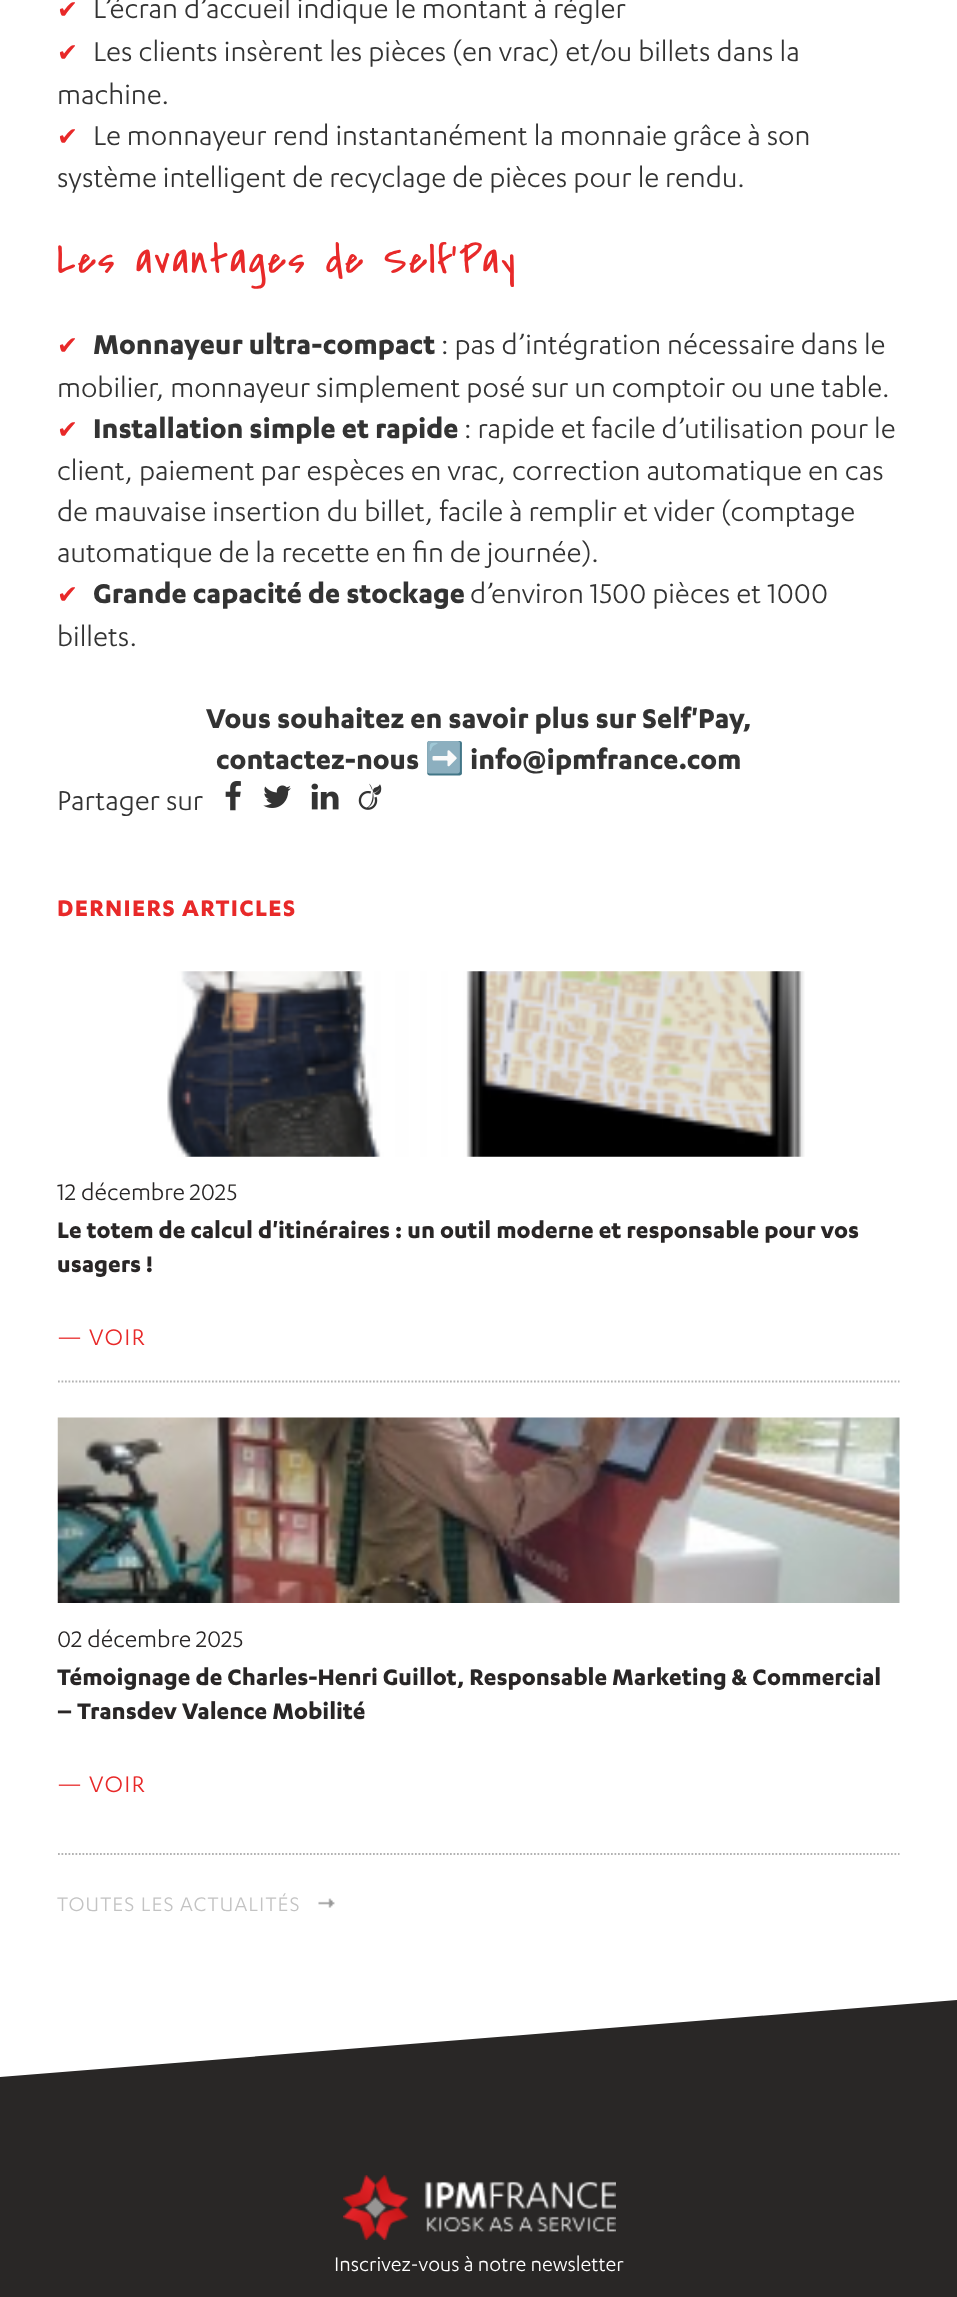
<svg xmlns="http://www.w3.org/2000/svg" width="957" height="2297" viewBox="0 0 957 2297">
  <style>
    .t1 { font: 25px DejaVu Sans; fill: #e82929; }
    .t2 { font: 31.5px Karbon; fill: #333; }
    .t3 { font: 42px Covered By Your Grace; letter-spacing: 2.1px; fill: #e82929; }
    .t4 { font: bold 31.5px Karbon; fill: #333; }
    .t5 { font: 31.5px Noto Color Emoji; fill: #333; }
    .t6 { font: bold 26.25px Karbon; letter-spacing: 1.3px; fill: #e82929; }
    .t7 { font: 26.25px Karbon; fill: #292626; }
    .t8 { font: bold 26.25px Karbon; fill: #292626; }
    .t9 { font: 26.25px Karbon; letter-spacing: 1.3px; fill: #e82929; }
    .t10 { font: 22.75px Karbon; letter-spacing: 1.1px; fill: #c3c3c3; }
    .t11 { font: 22.75px Karbon; fill: #fff; }
  </style>
  <defs>
    <clipPath id="clip1"><rect x="0" y="2000" width="957" height="79"/></clipPath>
  </defs>
  <rect width="100%" height="100%" fill="#fff"/>
  <text x="57" y="18" class="t1">✔</text>
  <text x="93" y="18" class="t2">L’écran d’accueil indique le montant à régler</text>
  <text x="57" y="61" class="t1">✔</text>
  <text x="93" y="61" class="t2">Les clients insèrent les pièces (en vrac) et/ou billets dans la</text>
  <text x="57" y="104" class="t2">machine.</text>
  <text x="57" y="145" class="t1">✔</text>
  <text x="93" y="145" class="t2">Le monnayeur rend instantanément la monnaie grâce à son</text>
  <text x="57" y="187" class="t2">système intelligent de recyclage de pièces pour le rendu.</text>
  <text x="57" y="273" class="t3">Les avantages de Self'Pay</text>
  <text x="57" y="354" class="t1">✔</text>
  <text x="93" y="354" class="t4">Monnayeur ultra-compact</text>
  <text x="441" y="354" class="t2">: pas d’intégration nécessaire dans le</text>
  <text x="57" y="397" class="t2">mobilier, monnayeur simplement posé sur un comptoir ou une table.</text>
  <text x="57" y="438" class="t1">✔</text>
  <text x="93" y="438" class="t4">Installation simple et rapide</text>
  <text x="464" y="438" class="t2">: rapide et facile d’utilisation pour le</text>
  <text x="57" y="480" class="t2">client, paiement par espèces en vrac, correction automatique en cas</text>
  <text x="57" y="521" class="t2">de mauvaise insertion du billet, facile à remplir et vider (comptage</text>
  <text x="57" y="562" class="t2">automatique de la recette en fin de journée).</text>
  <text x="57" y="603" class="t1">✔</text>
  <text x="93" y="603" class="t4">Grande capacité de stockage</text>
  <text x="470" y="603" class="t2">d’environ 1500 pièces et 1000</text>
  <text x="57" y="646" class="t2">billets.</text>
  <text x="206" y="728" class="t4">Vous souhaitez en savoir plus sur Self'Pay,</text>
  <text x="216" y="769" class="t4">contactez-nous</text>
  <text x="425" y="769" class="t5">➡️</text>
  <text x="470" y="769" class="t4">info@ipmfrance.com</text>
  <text x="57" y="810" class="t2">Partager sur</text>
  <image x="225" y="781" width="16" height="30" href="images/1.png"/>
  <image x="263" y="785" width="28" height="23" href="images/2.png"/>
  <image x="311" y="783" width="28" height="27" href="images/3.png"/>
  <image x="358" y="783" width="24" height="27" href="images/4.png"/>
  <text x="57" y="916" class="t6">DERNIERS ARTICLES</text>
  <image x="167" y="971" width="638" height="186" href="images/5.png"/>
  <text x="57" y="1200" class="t7">12 décembre 2025</text>
  <text x="57" y="1238" class="t8">Le totem de calcul d'itinéraires : un outil moderne et responsable pour vos</text>
  <text x="57" y="1272" class="t8">usagers !</text>
  <text x="57" y="1345" class="t9">—</text>
  <text x="89" y="1345" class="t9">VOIR</text>
  <path d="M58 1381.5H899.5" fill="none" stroke="#b2b2b2" stroke-width="1.8" stroke-dasharray="1.75 1.75"/>
  <image x="57" y="1417" width="843" height="186" href="images/6.png"/>
  <text x="57" y="1647" class="t7">02 décembre 2025</text>
  <text x="57" y="1685" class="t8">Témoignage de Charles-Henri Guillot, Responsable Marketing &amp; Commercial</text>
  <text x="57" y="1719" class="t8">– Transdev Valence Mobilité</text>
  <text x="57" y="1792" class="t9">—</text>
  <text x="89" y="1792" class="t9">VOIR</text>
  <path d="M58 1854H899.5" fill="none" stroke="#b2b2b2" stroke-width="1.8" stroke-dasharray="1.75 1.75"/>
  <text x="57" y="1911" class="t10">TOUTES LES ACTUALITÉS</text>
  <image x="318" y="1898" width="17" height="10" href="images/7.png"/>
  <rect x="0" y="2079" width="957" height="218" fill="#292726"/>
  <g clip-path="url(#clip1)">
    <path d="M0 2077L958 2000L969 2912L12 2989Z" fill="#292726" fill-rule="evenodd"/>
  </g>
  <image x="343" y="2175" width="273" height="65" href="images/8.png"/>
  <text x="334" y="2271" class="t11">Inscrivez-vous à notre newsletter</text>
</svg>
